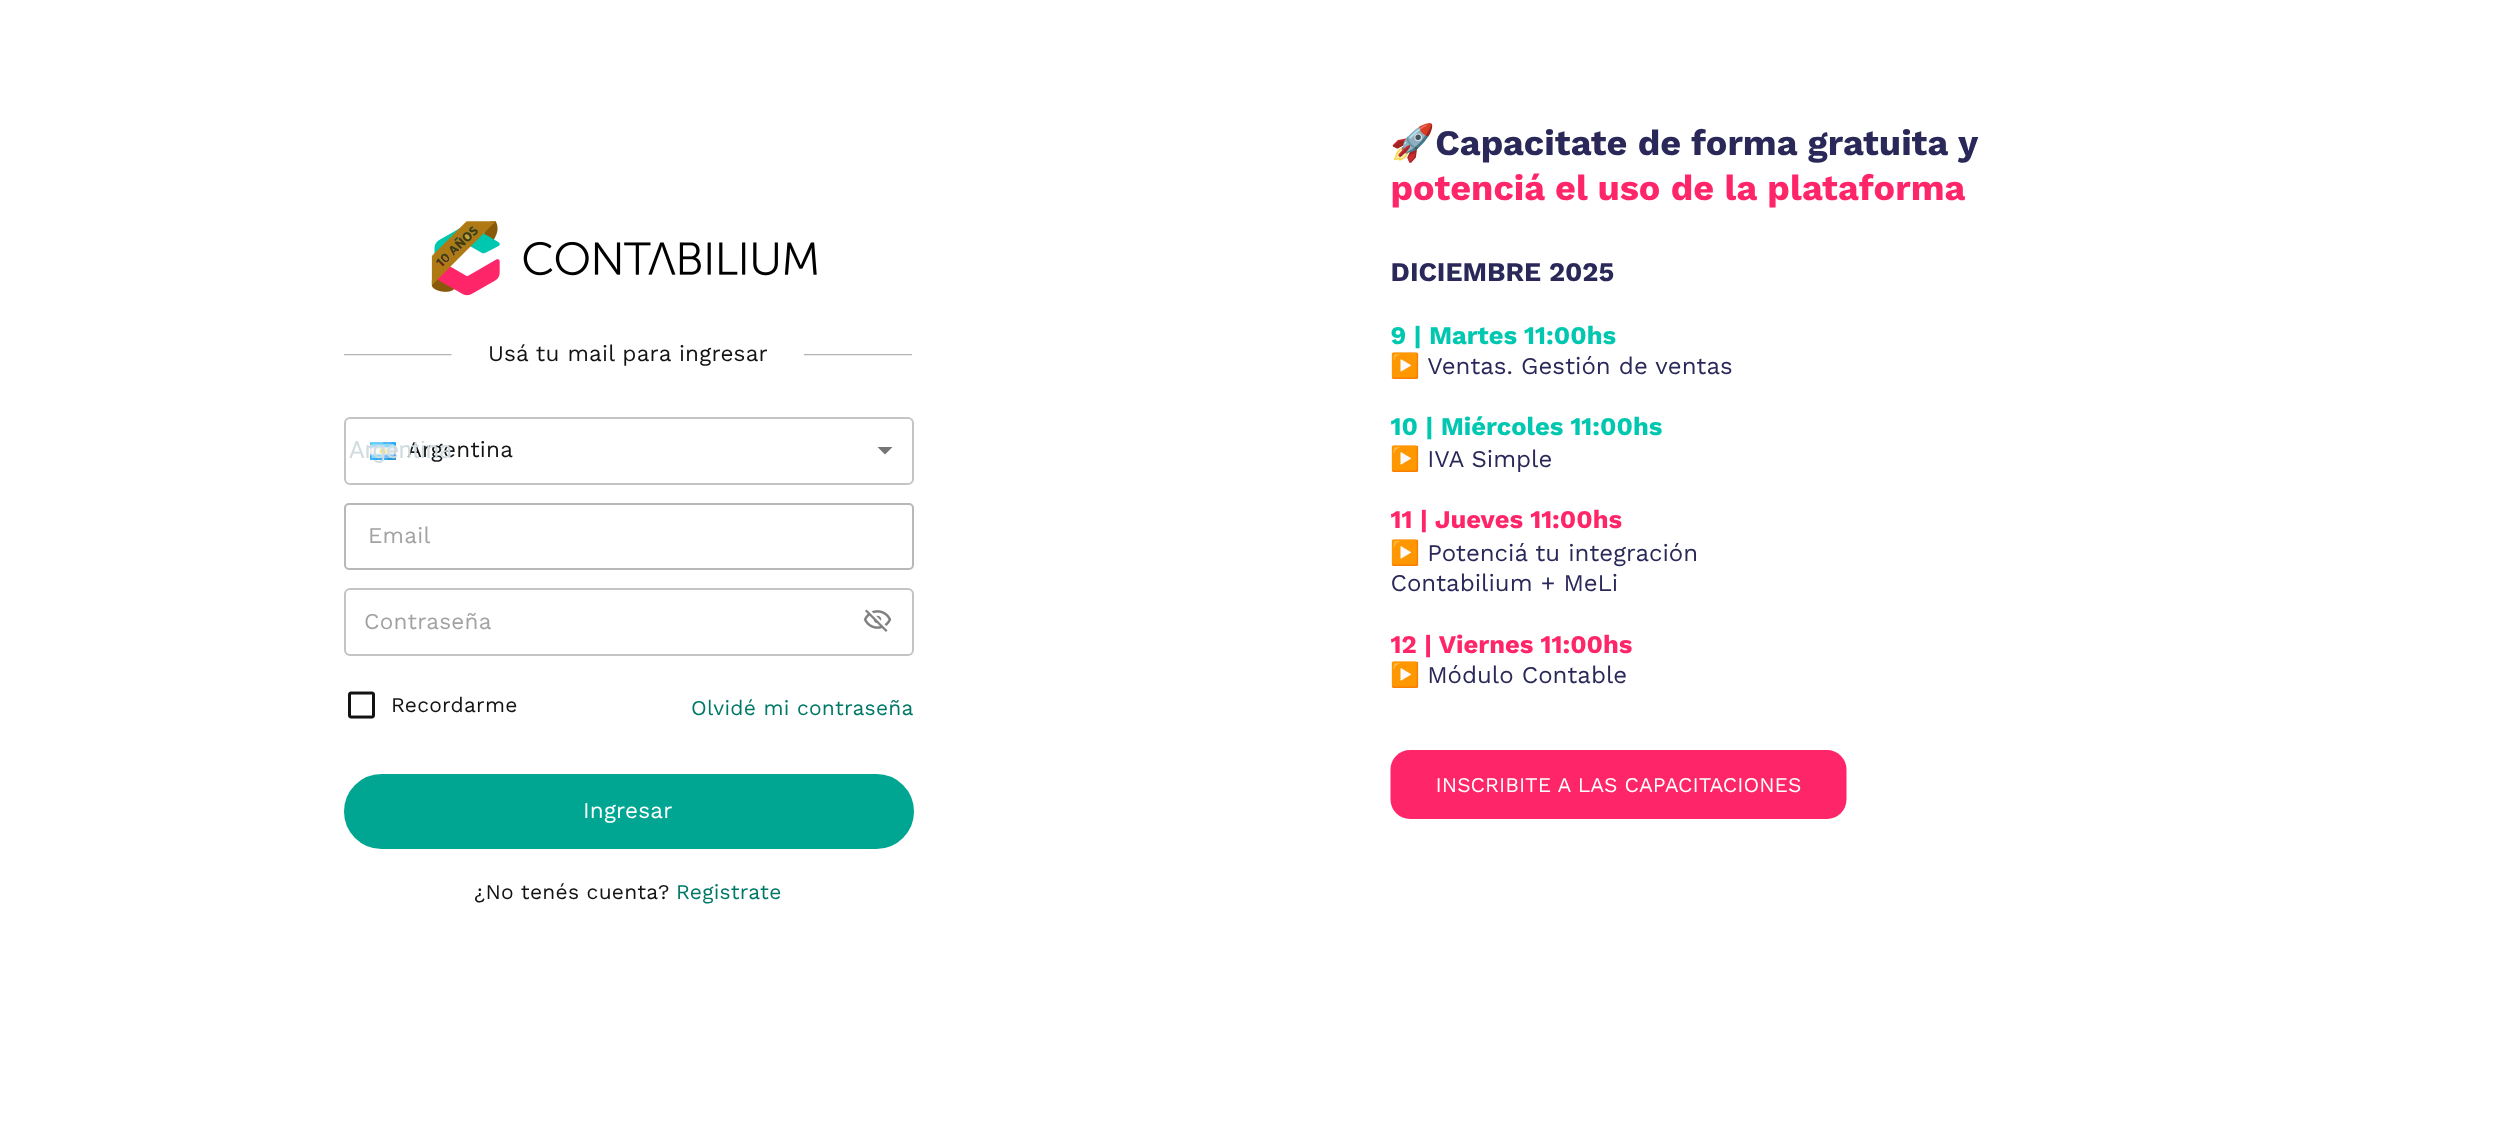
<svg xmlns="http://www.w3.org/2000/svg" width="2510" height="1139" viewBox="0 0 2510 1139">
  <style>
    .t1 { font: 22.5px Work Sans; letter-spacing: 0.2px; fill: #131313; }
    .t2 { font: 24px Roboto; fill: #d0dce0; }
    .t3 { font: 22.5px Work Sans; letter-spacing: 0.25px; fill: #a2a2a2; }
    .t4 { font: 21px Work Sans; letter-spacing: 0.25px; fill: #131313; }
    .t5 { font: 21px Work Sans; letter-spacing: 0.25px; fill: #007868; }
    .t6 { font: 22.5px Work Sans; letter-spacing: 0.2px; fill: #fff; }
  </style>
  <defs>
    <clipPath id="clip1"><rect x="344" y="354" width="108" height="2"/></clipPath>
    <clipPath id="clip2"><rect x="804" y="354" width="108" height="2"/></clipPath>
  </defs>
  <rect width="100%" height="100%" fill="#fff"/>
  <image x="431" y="221" width="386" height="75" href="images/1.png"/>
  <g clip-path="url(#clip1)">
    <path d="M451.5 354.5H343.5" fill="none" stroke="#b3b3b3" stroke-width="1.5"/>
  </g>
  <text x="488" y="361" class="t1">Usá tu mail para ingresar</text>
  <g clip-path="url(#clip2)">
    <path d="M912 354.5H804" fill="none" stroke="#b3b3b3" stroke-width="1.5"/>
  </g>
  <image x="370" y="442" width="26" height="18" href="images/2.png"/>
  <path d="M877.5 447L885 454.5L892.5 447Z" fill="#757575"/>
  <rect x="345" y="418" width="568" height="66" rx="5" fill="none" stroke="#c4c4c4" stroke-width="2"/>
  <text x="407" y="457" class="t1">Argentina</text>
  <text x="349" y="458" class="t2">Argentina</text>
  <rect x="345" y="504" width="568" height="65" rx="4" fill="none" stroke="#b8b8b8" stroke-width="2"/>
  <text x="368" y="543" class="t3">Email</text>
  <image x="863" y="609" width="29" height="23" href="images/3.png"/>
  <rect x="345" y="589" width="568" height="66" rx="5" fill="none" stroke="#c4c4c4" stroke-width="2"/>
  <text x="364" y="629" class="t3">Contraseña</text>
  <image x="348" y="691" width="27" height="28" href="images/4.png"/>
  <text x="391" y="712" class="t4">Recordarme</text>
  <text x="691" y="715" class="t5">Olvidé mi contraseña</text>
  <rect x="345.5" y="775.5" width="567" height="72" rx="36" fill="#00a692" stroke="#00a692" stroke-width="3"/>
  <text x="583" y="818" class="t6">Ingresar</text>
  <text x="474" y="899" class="t4">¿No tenés cuenta?</text>
  <text x="676" y="899" class="t5">Registrate</text>
  <image x="1390" y="123" width="589" height="696" href="images/5.png"/>
</svg>
